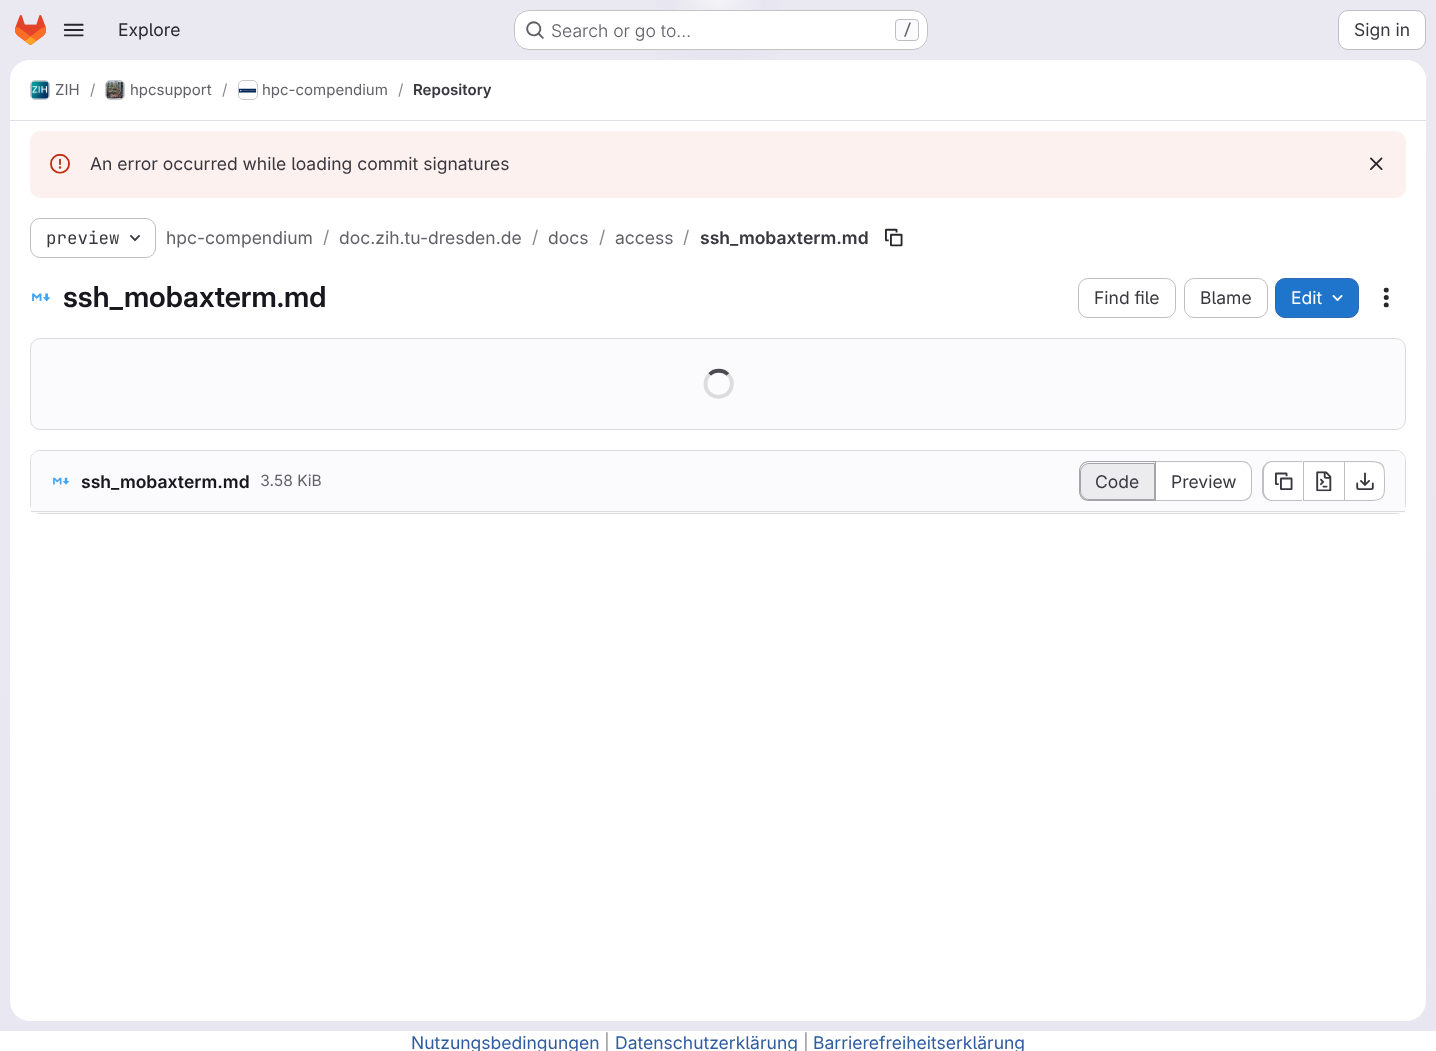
<svg xmlns="http://www.w3.org/2000/svg" width="1436" height="1051" viewBox="0 0 1436 1051">
  <style>
    .t1 { font: 17.5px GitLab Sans; fill: #28272d; }
    .t2 { font: 300 17.5px GitLab Sans; fill: #626168; }
    .t3 { font: 500 15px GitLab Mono; fill: #626168; }
    .t4 { font: 17.5px GitLab Sans; fill: #3a383f; }
    .t5 { font: 15px GitLab Sans; fill: #626168; }
    .t6 { font: 15px GitLab Sans; fill: #89888d; }
    .t7 { font: 600 15px GitLab Sans; fill: #3a383f; }
    .t8 { font: 17.5px GitLab Mono; fill: #3a383f; }
    .t9 { font: 17.5px GitLab Sans; fill: #626168; }
    .t10 { font: 17.5px GitLab Sans; fill: #89888d; }
    .t11 { font: 600 17.5px GitLab Sans; fill: #3a383f; }
    .t12 { font: 600 28.75px 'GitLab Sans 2'; fill: #18171d; }
    .t13 { font: 17.5px GitLab Sans; fill: #fff; }
    .t14 { font: 600 17.5px GitLab Sans; fill: #18171d; }
    .t15 { font: 15.5px GitLab Sans; fill: #626168; }
    .t16 { font: 17.5px GitLab Sans; fill: #2f5ca0; }
    .t17 { font: 17.5px GitLab Sans; fill: #909090; }
  </style>
  <defs>
    <linearGradient id="g1" gradientUnits="userSpaceOnUse" x1="830" y1="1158" x2="607" y2="-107"><stop offset="0" stop-color="#e8e6f0"/><stop offset="0.7" stop-color="#eae9f2"/></linearGradient>
    <radialGradient id="g2" gradientUnits="userSpaceOnUse" cx="0" cy="0" r="1" gradientTransform="matrix(718 0 0 1051 718 0)"><stop offset="0" stop-color="#e4e2ed"/><stop offset="0.12" stop-color="#e4e2ed" stop-opacity="0"/></radialGradient>
    <radialGradient id="g3" gradientUnits="userSpaceOnUse" cx="0" cy="0" r="1" gradientTransform="matrix(718 0 0 1051 718 0)"><stop offset="0" stop-color="#e4e2ec"/><stop offset="0.09" stop-color="#e4e2ec" stop-opacity="0"/></radialGradient>
    <radialGradient id="g4" gradientUnits="userSpaceOnUse" cx="718" cy="0" r="1273"><stop offset="0" stop-color="#fff" stop-opacity="0.6"/><stop offset="0.04" stop-color="#fff" stop-opacity="0"/></radialGradient>
  </defs>
  <rect width="100%" height="100%" fill="#fff"/>
  <rect x="0" y="0" width="1436" height="1031" fill="url(#g1)"/>
  <rect x="656" y="0" width="124" height="60" fill="url(#g2)"/>
  <rect x="688" y="5" width="54" height="35" fill="url(#g3)"/>
  <rect x="675" y="0" width="86" height="10" fill="url(#g4)"/>
  <image x="15" y="15" width="31" height="30" href="images/1.png"/>
  <image x="63" y="23" width="21" height="14" href="images/2.png"/>
  <text x="118" y="36" class="t1">Explore</text>
  <rect x="514" y="10" width="414" height="40" rx="15" fill="#fff"/>
  <rect x="514.5" y="10.5" width="413" height="39" rx="14.5" fill="none" stroke="#0505063d"/>
  <image x="526" y="21" width="18" height="18" href="images/3.png"/>
  <text x="551" y="37" class="t2">Search or go to…</text>
  <rect x="895.5" y="19.5" width="23" height="21" rx="3.5" fill="#fbfafd" stroke="#bfbfc3"/>
  <text x="903" y="35" class="t3">/</text>
  <rect x="1338.5" y="10.5" width="87" height="39" rx="9.5" fill="#fff" stroke="#bfbfc3"/>
  <text x="1354" y="36" class="t4">Sign in</text>
  <rect x="10" y="60" width="1416" height="961" rx="20" fill="#fff"/>
  <path d="M30 60H1406C1417 60 1426 69 1426 80V121H10V80C10 69 19 60 30 60Z" fill="#fff"/>
  <rect x="10" y="120" width="1416" height="1" fill="#e1dfec"/>
  <rect x="30.5" y="80.5" width="19" height="19" rx="4.5" fill="none" stroke="#dcdcde"/>
  <image x="31" y="81" width="18" height="18" href="images/4.png"/>
  <rect x="30.5" y="80.5" width="19" height="19" rx="4.5" fill="none" stroke="#05050614"/>
  <text x="55" y="95" class="t5">ZIH</text>
  <text x="90" y="95" class="t6">/</text>
  <rect x="105.5" y="80.5" width="19" height="19" rx="4.5" fill="none" stroke="#dcdcde"/>
  <image x="106" y="81" width="18" height="18" href="images/5.png"/>
  <rect x="105.5" y="80.5" width="19" height="19" rx="4.5" fill="none" stroke="#05050614"/>
  <text x="130" y="95" class="t5">hpcsupport</text>
  <text x="222" y="95" class="t6">/</text>
  <rect x="238.5" y="80.5" width="19" height="19" rx="4.5" fill="none" stroke="#dcdcde"/>
  <image x="238" y="88" width="19" height="5" href="images/6.png"/>
  <rect x="238.5" y="80.5" width="19" height="19" rx="4.5" fill="none" stroke="#05050614"/>
  <text x="262" y="95" class="t5">hpc-compendium</text>
  <text x="398" y="95" class="t6">/</text>
  <text x="413" y="95" class="t7">Repository</text>
  <rect x="30" y="131" width="1376" height="67" rx="10" fill="#fcf1ef"/>
  <image x="50" y="153" width="20" height="21" href="images/7.png"/>
  <text x="90" y="170" class="t4">An error occurred while loading commit signatures</text>
  <image x="1370" y="157" width="13" height="13" href="images/8.png"/>
  <rect x="30.5" y="218.5" width="125" height="39" rx="9.5" fill="none" stroke="#bfbfc3"/>
  <text x="46" y="244" class="t8">preview</text>
  <image x="130" y="235" width="10" height="6" href="images/9.png"/>
  <text x="166" y="244" class="t9">hpc-compendium</text>
  <text x="323" y="243" class="t10">/</text>
  <text x="339" y="244" class="t9">doc.zih.tu-dresden.de</text>
  <text x="532" y="243" class="t10">/</text>
  <text x="548" y="244" class="t9">docs</text>
  <text x="599" y="243" class="t10">/</text>
  <text x="615" y="244" class="t9">access</text>
  <text x="683" y="243" class="t10">/</text>
  <text x="700" y="244" class="t11">ssh_mobaxterm.md</text>
  <image x="885" y="228" width="18" height="19" href="images/10.png"/>
  <image x="32" y="293" width="19" height="9" href="images/11.png"/>
  <text x="63" y="307" class="t12">ssh_mobaxterm.md</text>
  <rect x="1078.5" y="278.5" width="97" height="39" rx="9.5" fill="none" stroke="#bfbfc3"/>
  <text x="1094" y="304" class="t4">Find file</text>
  <rect x="1184.5" y="278.5" width="83" height="39" rx="9.5" fill="none" stroke="#bfbfc3"/>
  <text x="1200" y="304" class="t4">Blame</text>
  <rect x="1275.5" y="278.5" width="83" height="39" rx="9.5" fill="#1f75cb" stroke="#2f68b4"/>
  <text x="1291" y="304" class="t13">Edit</text>
  <image x="1332" y="295" width="11" height="6" href="images/12.png"/>
  <image x="1383" y="287" width="6" height="21" href="images/13.png"/>
  <rect x="30.5" y="338.5" width="1375" height="91" rx="9.5" fill="#fbfafd" stroke="#dcdcde"/>
  <path d="M709.5 374.5C714.5 369.5 723 369.5 728 374.5" fill="none" stroke="#4c4b51" stroke-width="3.8"/>
  <path d="M728 374.5C731 377.5 732.5 382 731.5 386.5C728.5 401.5 705.5 399.5 705.5 384C705.5 380.5 707 377 709.5 374.5" fill="none" stroke="#dcdcde" stroke-width="3.8"/>
  <rect x="30.5" y="450.5" width="1375" height="63" rx="9.5" fill="none" stroke="#dcdcde"/>
  <path d="M40 451H1396C1401 451 1405 455 1405 460V513H31V460C31 455 35 451 40 451Z" fill="#fbfafd"/>
  <rect x="31" y="511" width="1374" height="1" fill="#dcdcde"/>
  <image x="53" y="477" width="17" height="8" href="images/14.png"/>
  <text x="81" y="488" class="t14">ssh_mobaxterm.md</text>
  <text x="260" y="486" class="t15">3.58 KiB</text>
  <path d="M1089 463.5H1154.5V499.5H1089C1084.5 499.5 1080.5 495.5 1080.5 491V472C1080.5 467.5 1084.5 463.5 1089 463.5Z" fill="#ececef" stroke="#a4a3a8"/>
  <path d="M1089 461H1155V501H1089C1083 501 1079 497 1079 491V471C1079 466 1083 461 1089 461ZM1089 462H1155V500H1089C1084 500 1080 496 1080 491V471C1080 466 1084 462 1089 462Z" fill="#a4a3a8" fill-rule="evenodd"/>
  <text x="1095" y="488" class="t4">Code</text>
  <path d="M1156 463H1242C1247 463 1251 467 1251 472V491C1251 496 1247 500 1242 500H1156Z" fill="#fff"/>
  <path d="M1156 461H1242C1248 461 1252 466 1252 471V491C1252 497 1248 501 1242 501H1156ZM1156 462H1242C1247 462 1251 466 1251 471V491C1251 496 1247 500 1242 500H1156Z" fill="#bfbfc3" fill-rule="evenodd"/>
  <rect x="1155" y="461" width="1" height="40" fill="#a4a3a8"/>
  <text x="1171" y="488" class="t4">Preview</text>
  <path d="M1273 463H1303V500H1273C1268 500 1264 496 1264 491V472C1264 467 1268 463 1273 463Z" fill="#fff"/>
  <path d="M1272 461H1302V501H1272C1267 501 1262 497 1262 491V471C1262 466 1267 461 1272 461ZM1272 462H1302V500H1272C1268 500 1264 496 1264 491V471C1264 466 1268 462 1272 462Z" fill="#bfbfc3" fill-rule="evenodd"/>
  <image x="1275" y="472" width="18" height="18" href="images/15.png"/>
  <rect x="1304" y="463" width="40" height="37" fill="#fff"/>
  <rect x="1304" y="461" width="40" height="1" fill="#bfbfc3"/>
  <rect x="1304" y="500" width="40" height="1" fill="#bfbfc3"/>
  <rect x="1303" y="461" width="1" height="40" fill="#bfbfc3"/>
  <image x="1316" y="471" width="16" height="21" href="images/16.png"/>
  <path d="M1345 463H1375C1380 463 1384 467 1384 472V491C1384 496 1380 500 1375 500H1345Z" fill="#fff"/>
  <path d="M1345 461H1370C1386 461 1385 467 1385 481C1385 495 1386 501 1370 501H1345ZM1345 462H1370C1385 462 1384 468 1384 481C1384 495 1385 500 1370 500H1345Z" fill="#bfbfc3" fill-rule="evenodd"/>
  <rect x="1344" y="461" width="1" height="40" fill="#bfbfc3"/>
  <image x="1356" y="472" width="18" height="18" href="images/17.png"/>
  <text x="411" y="1049" class="t16">Nutzungsbedingungen</text>
  <text x="604" y="1049" class="t17">|</text>
  <text x="615" y="1049" class="t16">Datenschutzerklärung</text>
  <text x="803" y="1049" class="t17">|</text>
  <text x="813" y="1049" class="t16">Barrierefreiheitserklärung</text>
</svg>
